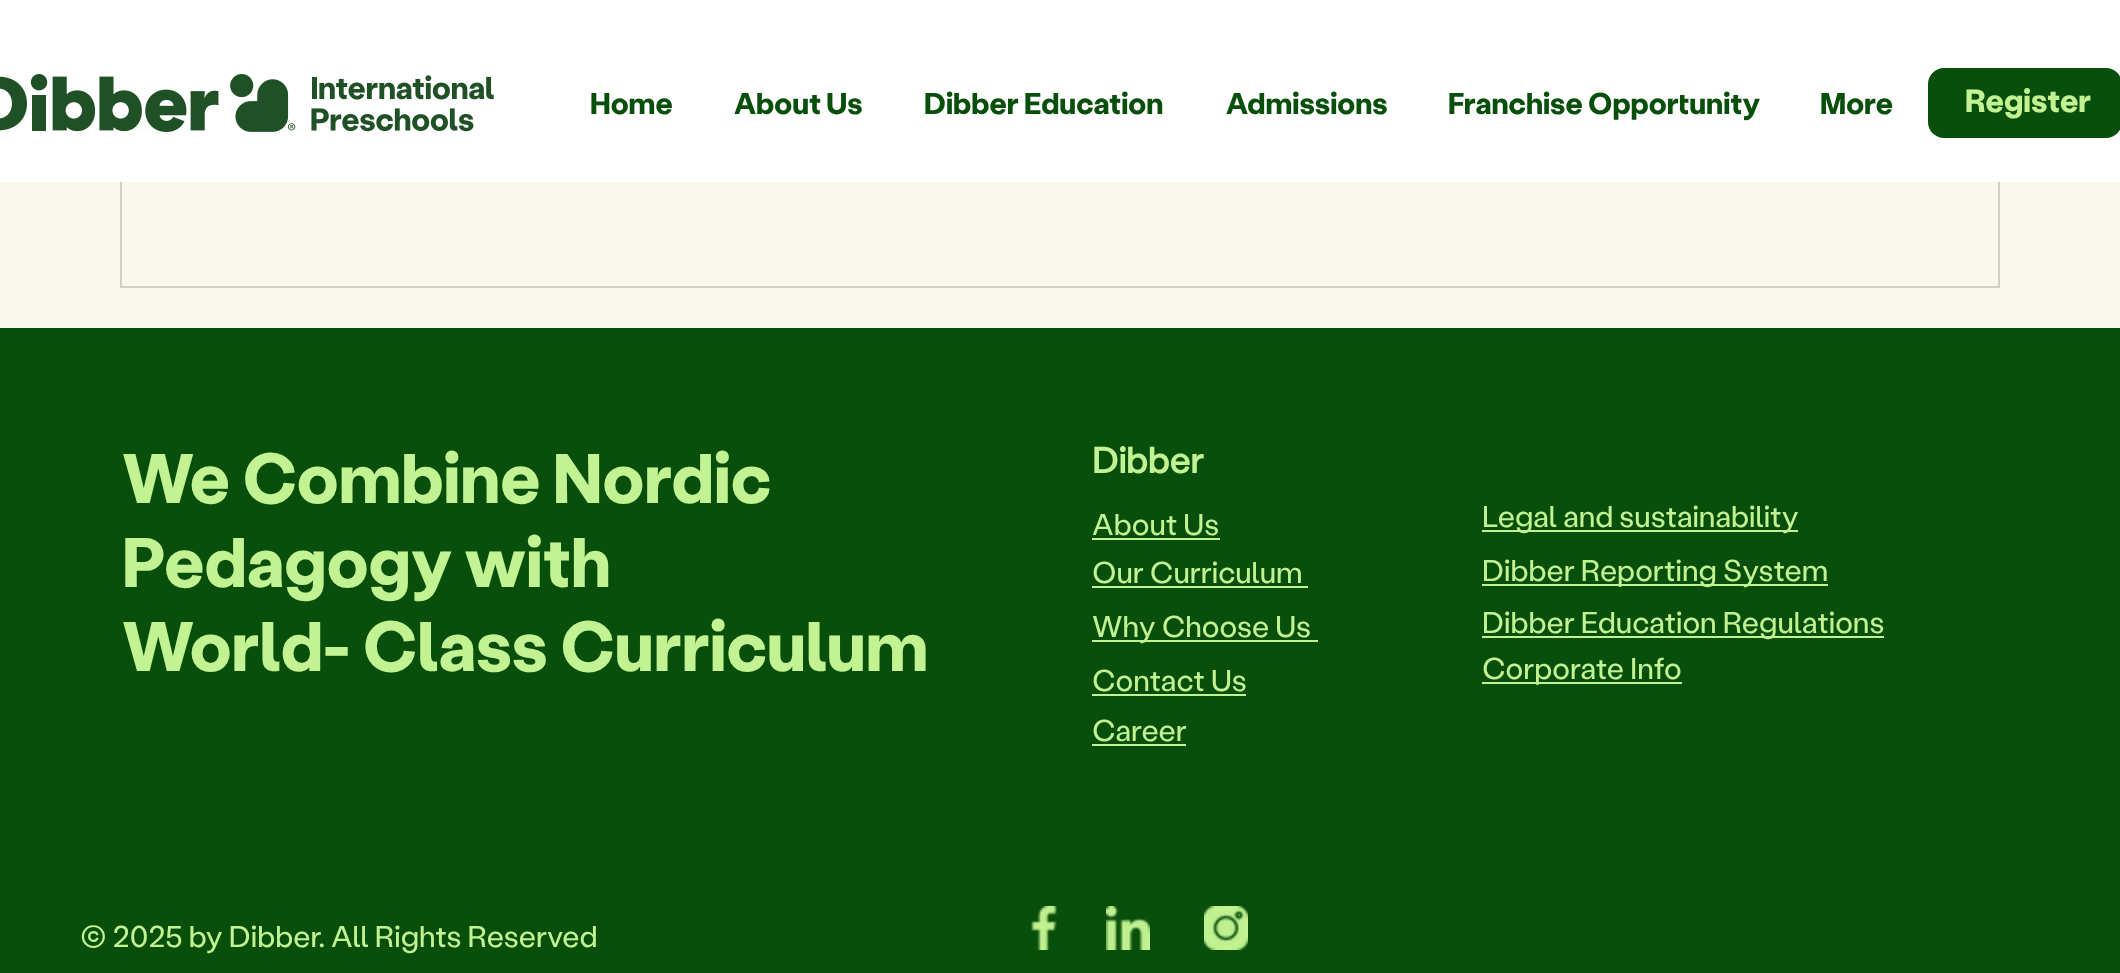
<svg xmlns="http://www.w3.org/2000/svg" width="2120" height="973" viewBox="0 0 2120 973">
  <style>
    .t1 { font: bold 30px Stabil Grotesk; fill: #094f0c; }
    .t2 { font: bold 32px 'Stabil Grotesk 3'; fill: #c2f291; }
    .t3 { font: bold 70px Stabil Grotesk; fill: #c2f291; }
    .t4 { font: bold 36px 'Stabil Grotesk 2'; fill: #c2f291; }
    .t5 { font: 30px Stabil Grotesk; fill: #c2f291; }
  </style>
  <rect width="100%" height="100%" fill="#f8f7ee"/>
  <rect x="121" y="-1" width="1878" height="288" fill="none" stroke="#d0cfc8" stroke-width="2"/>
  <rect x="0" y="0" width="2120" height="182" fill="#fff"/>
  <image x="0" y="74" width="494" height="58" href="images/1.png"/>
  <text x="590" y="114" class="t1">Home</text>
  <text x="734" y="114" class="t1">About Us</text>
  <text x="924" y="114" class="t1">Dibber Education</text>
  <text x="1226" y="114" class="t1">Admissions</text>
  <text x="1448" y="114" class="t1">Franchise Opportunity</text>
  <text x="1820" y="114" class="t1">More</text>
  <rect x="1928" y="68" width="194" height="70" rx="16" fill="#094f0c"/>
  <text x="1965" y="112" class="t2">Register</text>
  <rect x="0" y="328" width="2120" height="645" fill="#094f0c"/>
  <text x="122" y="503" class="t3">We Combine Nordic</text>
  <text x="122" y="587" class="t3">Pedagogy with</text>
  <text x="122" y="671" class="t3">World- Class Curriculum</text>
  <text x="1092" y="473" class="t4">Dibber</text>
  <rect x="1482" y="530" width="316" height="2" fill="#c2f291"/>
  <text x="1482" y="527" class="t5">Legal and sustainability</text>
  <text x="1092" y="535" class="t5">About Us</text>
  <rect x="1092" y="538" width="128" height="2" fill="#c2f291"/>
  <text x="1092" y="583" class="t5">Our Curriculum</text>
  <rect x="1092" y="586" width="216" height="2" fill="#c2f291"/>
  <rect x="1482" y="584" width="346" height="2" fill="#c2f291"/>
  <text x="1482" y="581" class="t5">Dibber Reporting System</text>
  <rect x="1092" y="640" width="226" height="2" fill="#c2f291"/>
  <text x="1092" y="637" class="t5">Why Choose Us</text>
  <rect x="1482" y="636" width="402" height="2" fill="#c2f291"/>
  <text x="1482" y="633" class="t5">Dibber Education Regulations</text>
  <text x="1092" y="691" class="t5">Contact Us</text>
  <rect x="1092" y="694" width="154" height="2" fill="#c2f291"/>
  <rect x="1482" y="682" width="200" height="2" fill="#c2f291"/>
  <text x="1482" y="679" class="t5">Corporate Info</text>
  <text x="1092" y="741" class="t5">Career</text>
  <rect x="1092" y="744" width="94" height="2" fill="#c2f291"/>
  <text x="80" y="947" class="t5">© 2025 by Dibber. All Rights Reserved</text>
  <image x="1031" y="906" width="26" height="44" href="images/2.png"/>
  <image x="1106" y="906" width="44" height="44" href="images/3.png"/>
  <image x="1204" y="906" width="44" height="44" href="images/4.png"/>
</svg>
